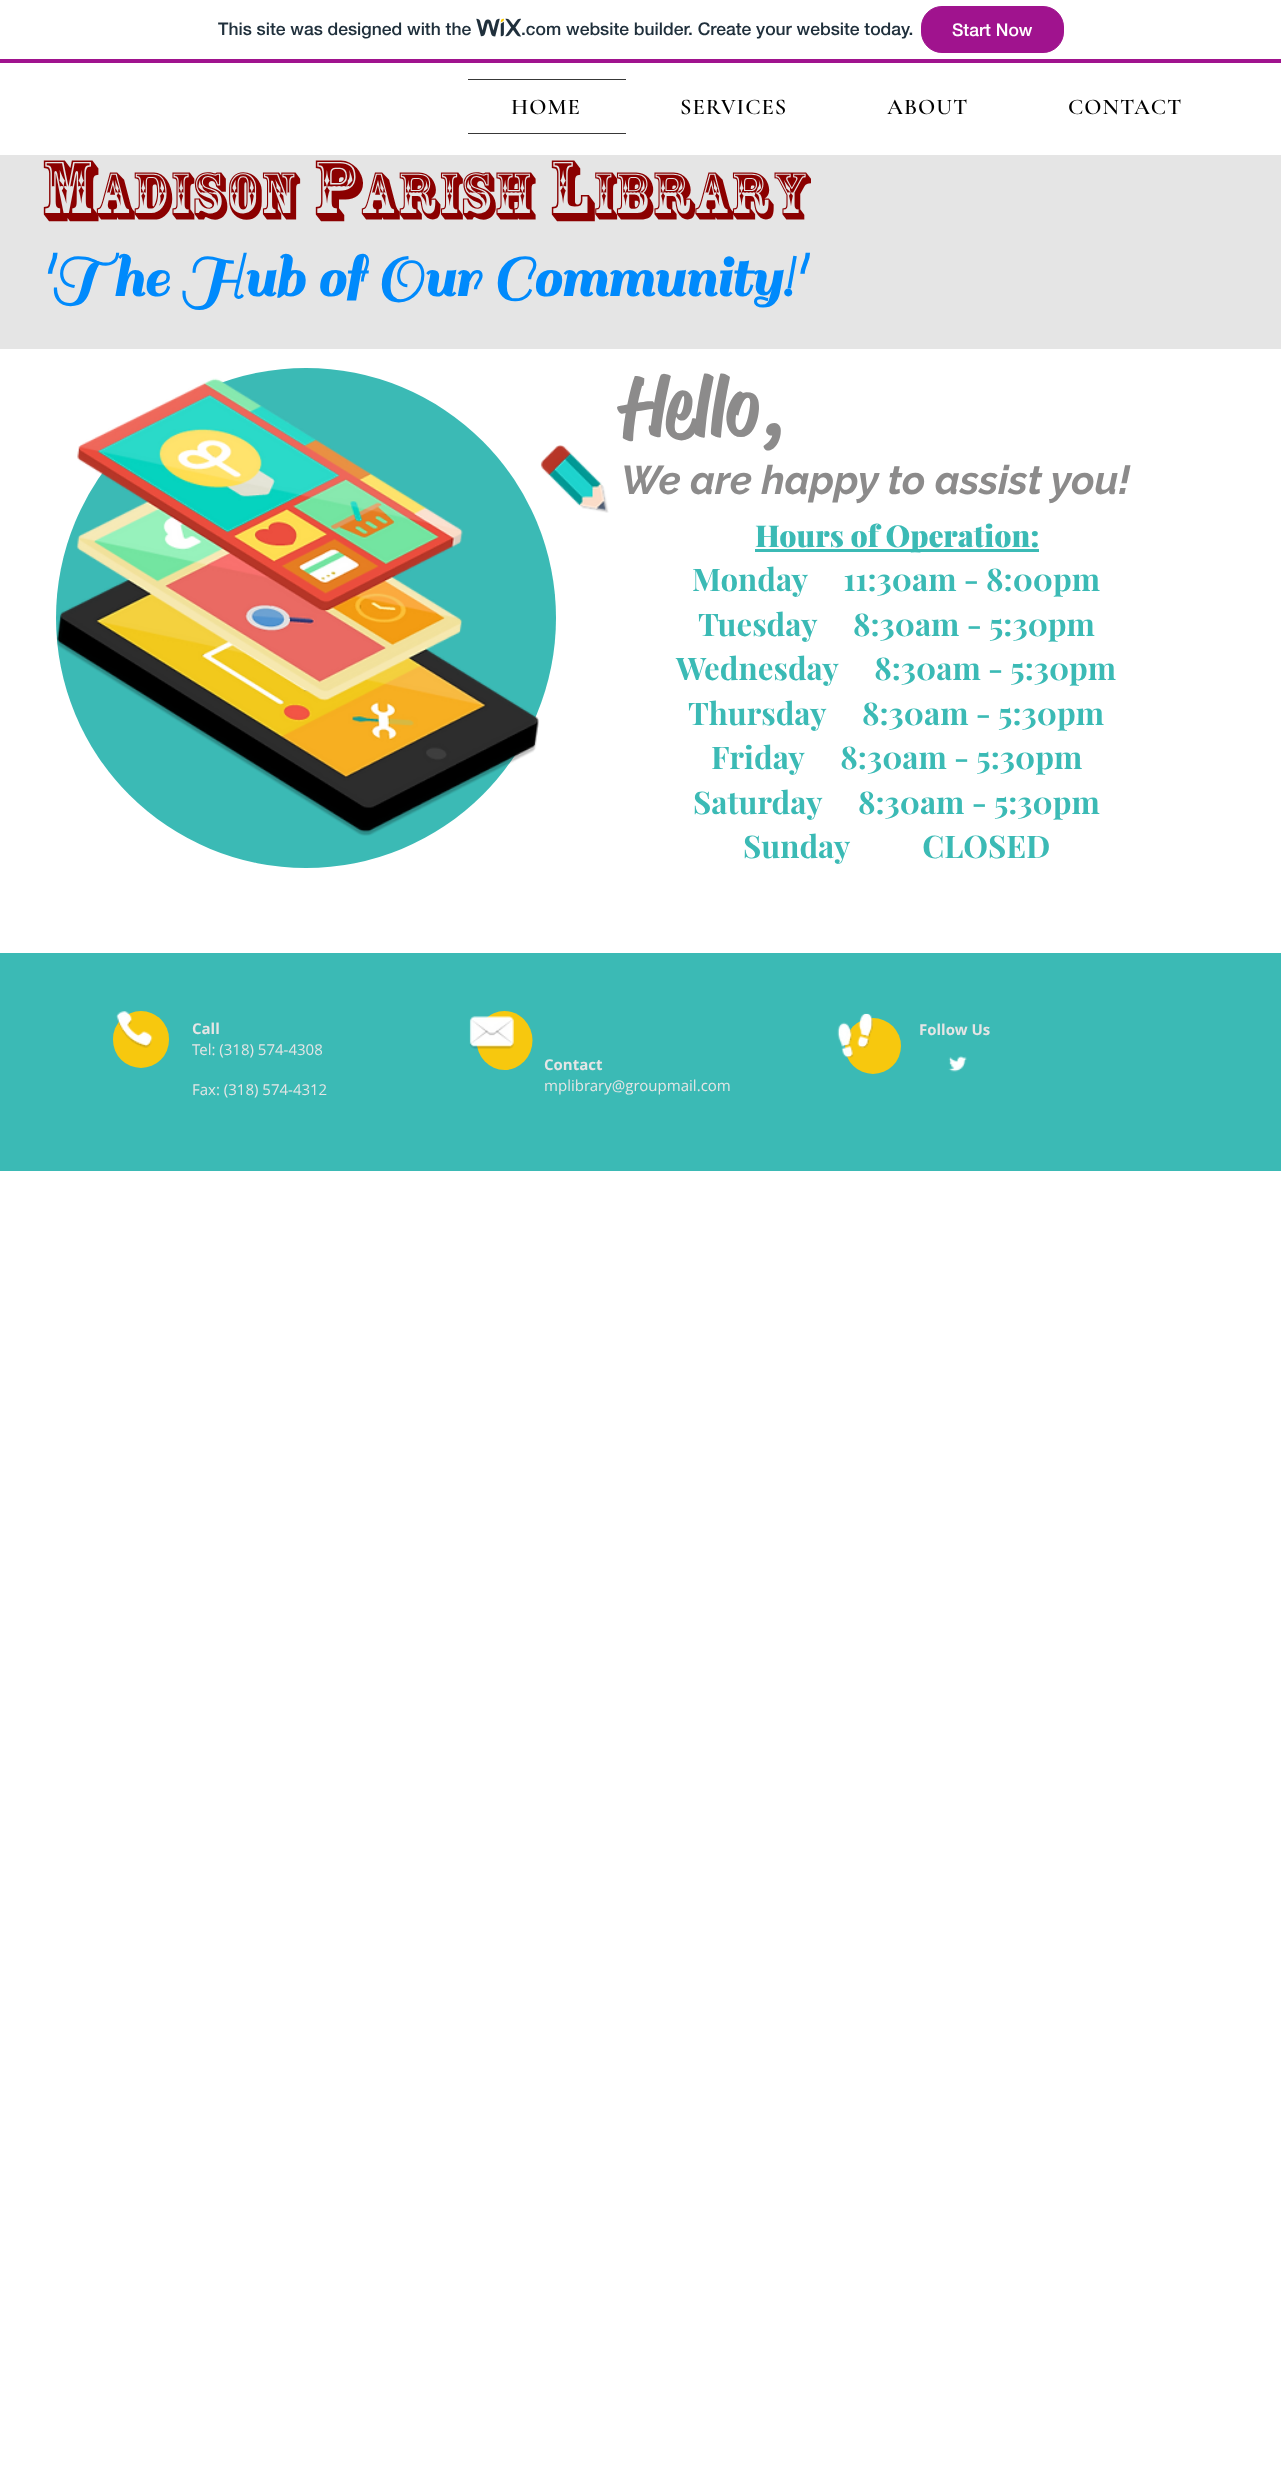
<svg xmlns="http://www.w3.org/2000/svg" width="1281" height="2488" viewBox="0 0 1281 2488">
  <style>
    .t1 { font: 500 17.5px 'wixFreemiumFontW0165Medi'; fill: #20303c; }
    .t2 { font: 500 17.5px 'wixFreemiumFontW0165Medi'; fill: #fff; }
    .t3 { font: 600 22.5px Cormorant Garamond; letter-spacing: 1px; fill: #000; }
    .t4 { font: 81px 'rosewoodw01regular'; fill: #8b0000; }
    .t5 { font: 62.5px 'rosewoodw01regular'; fill: #8b0000; }
    .t6 { font: bold 62.5px Sail; fill: #008afc; }
    .t7 { font: 500 81px 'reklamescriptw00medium'; fill: #8c8b8b; }
    .t8 { font: italic bold 40px Raleway; fill: #8c8b8b; }
    .t9 { font: 900 30px Playfair Display; fill: #3bbab5; }
    .t10 { font: bold 31.25px Playfair Display; fill: #3bbab5; }
    .t11 { font: bold 15px Open Sans; fill: #e5e5e5; }
    .t12 { font: 15px Open Sans; fill: #e5e5e5; }
  </style>
  <rect width="100%" height="100%" fill="#fff"/>
  <rect x="0" y="59" width="1281" height="4" fill="#a0138e"/>
  <text x="218" y="35" class="t1">This site was designed with the</text>
  <image x="476" y="18" width="45" height="19" href="images/1.png"/>
  <text x="521" y="35" class="t1">.com website builder. Create your website today.</text>
  <rect x="921.5" y="6.5" width="142" height="46" rx="20.5" fill="#a0138e" stroke="#a0138e"/>
  <text x="952" y="36" class="t2">Start Now</text>
  <rect x="468" y="79" width="158" height="1" fill="#383838"/>
  <rect x="468" y="133" width="158" height="1" fill="#383838"/>
  <text x="511" y="114" class="t3">HOME</text>
  <text x="680" y="114" class="t3">SERVICES</text>
  <text x="887" y="114" class="t3">ABOUT</text>
  <text x="1068" y="114" class="t3">CONTACT</text>
  <rect x="0" y="155" width="1281" height="194" fill="#e5e5e5"/>
  <text x="41" y="213" class="t4">M</text>
  <text x="95" y="213" class="t5">adison</text>
  <text x="313" y="213" class="t4">P</text>
  <text x="360" y="213" class="t5">arish</text>
  <text x="549" y="213" class="t4">L</text>
  <text x="593" y="213" class="t5">ibrary</text>
  <text x="41" y="296" class="t6">'The Hub of Our Community!'</text>
  <circle cx="306" cy="618" r="250" fill="#3bbab5"/>
  <text x="621" y="434" class="t7">Hello,</text>
  <text x="621" y="494" class="t8">We are happy to assist you!</text>
  <image x="56" y="378" width="483" height="458" href="images/2.png"/>
  <image x="540" y="445" width="69" height="68" href="images/3.png"/>
  <rect x="755" y="549" width="284" height="3" fill="#3bbab5"/>
  <text x="755" y="547" class="t9">Hours of Operation:</text>
  <text x="692" y="591" class="t10" xml:space="preserve">Monday     11:30am - 8:00pm</text>
  <text x="698" y="636" class="t10" xml:space="preserve">Tuesday     8:30am - 5:30pm</text>
  <text x="676" y="680" class="t10" xml:space="preserve">Wednesday     8:30am - 5:30pm</text>
  <text x="688" y="725" class="t10" xml:space="preserve">Thursday     8:30am - 5:30pm</text>
  <text x="711" y="769" class="t10" xml:space="preserve">Friday     8:30am - 5:30pm</text>
  <text x="693" y="814" class="t10" xml:space="preserve">Saturday     8:30am - 5:30pm</text>
  <text x="743" y="858" class="t10" xml:space="preserve">Sunday          CLOSED</text>
  <rect x="0" y="953" width="1281" height="218" fill="#3bbab5"/>
  <rect x="113" y="1011" width="56" height="57" rx="28" fill="#f7c80e"/>
  <image x="116" y="1011" width="37" height="37" href="images/4.png"/>
  <text x="192" y="1034" class="t11">Call</text>
  <text x="192" y="1055" class="t12">Tel: (318) 574-4308</text>
  <text x="192" y="1095" class="t12">Fax: (318) 574-4312</text>
  <ellipse cx="504.5" cy="1040.5" rx="28" ry="29.5" fill="#f7c80e"/>
  <image x="469" y="1016" width="45" height="33" href="images/5.png"/>
  <circle cx="873" cy="1046" r="28" fill="#f7c80e"/>
  <image x="837" y="1013" width="36" height="45" href="images/6.png"/>
  <text x="919" y="1035" class="t11">Follow Us</text>
  <text x="544" y="1070" class="t11">Contact</text>
  <text x="544" y="1091" class="t12">mplibrary@groupmail.com</text>
  <image x="948" y="1056" width="19" height="16" href="images/7.png"/>
</svg>
